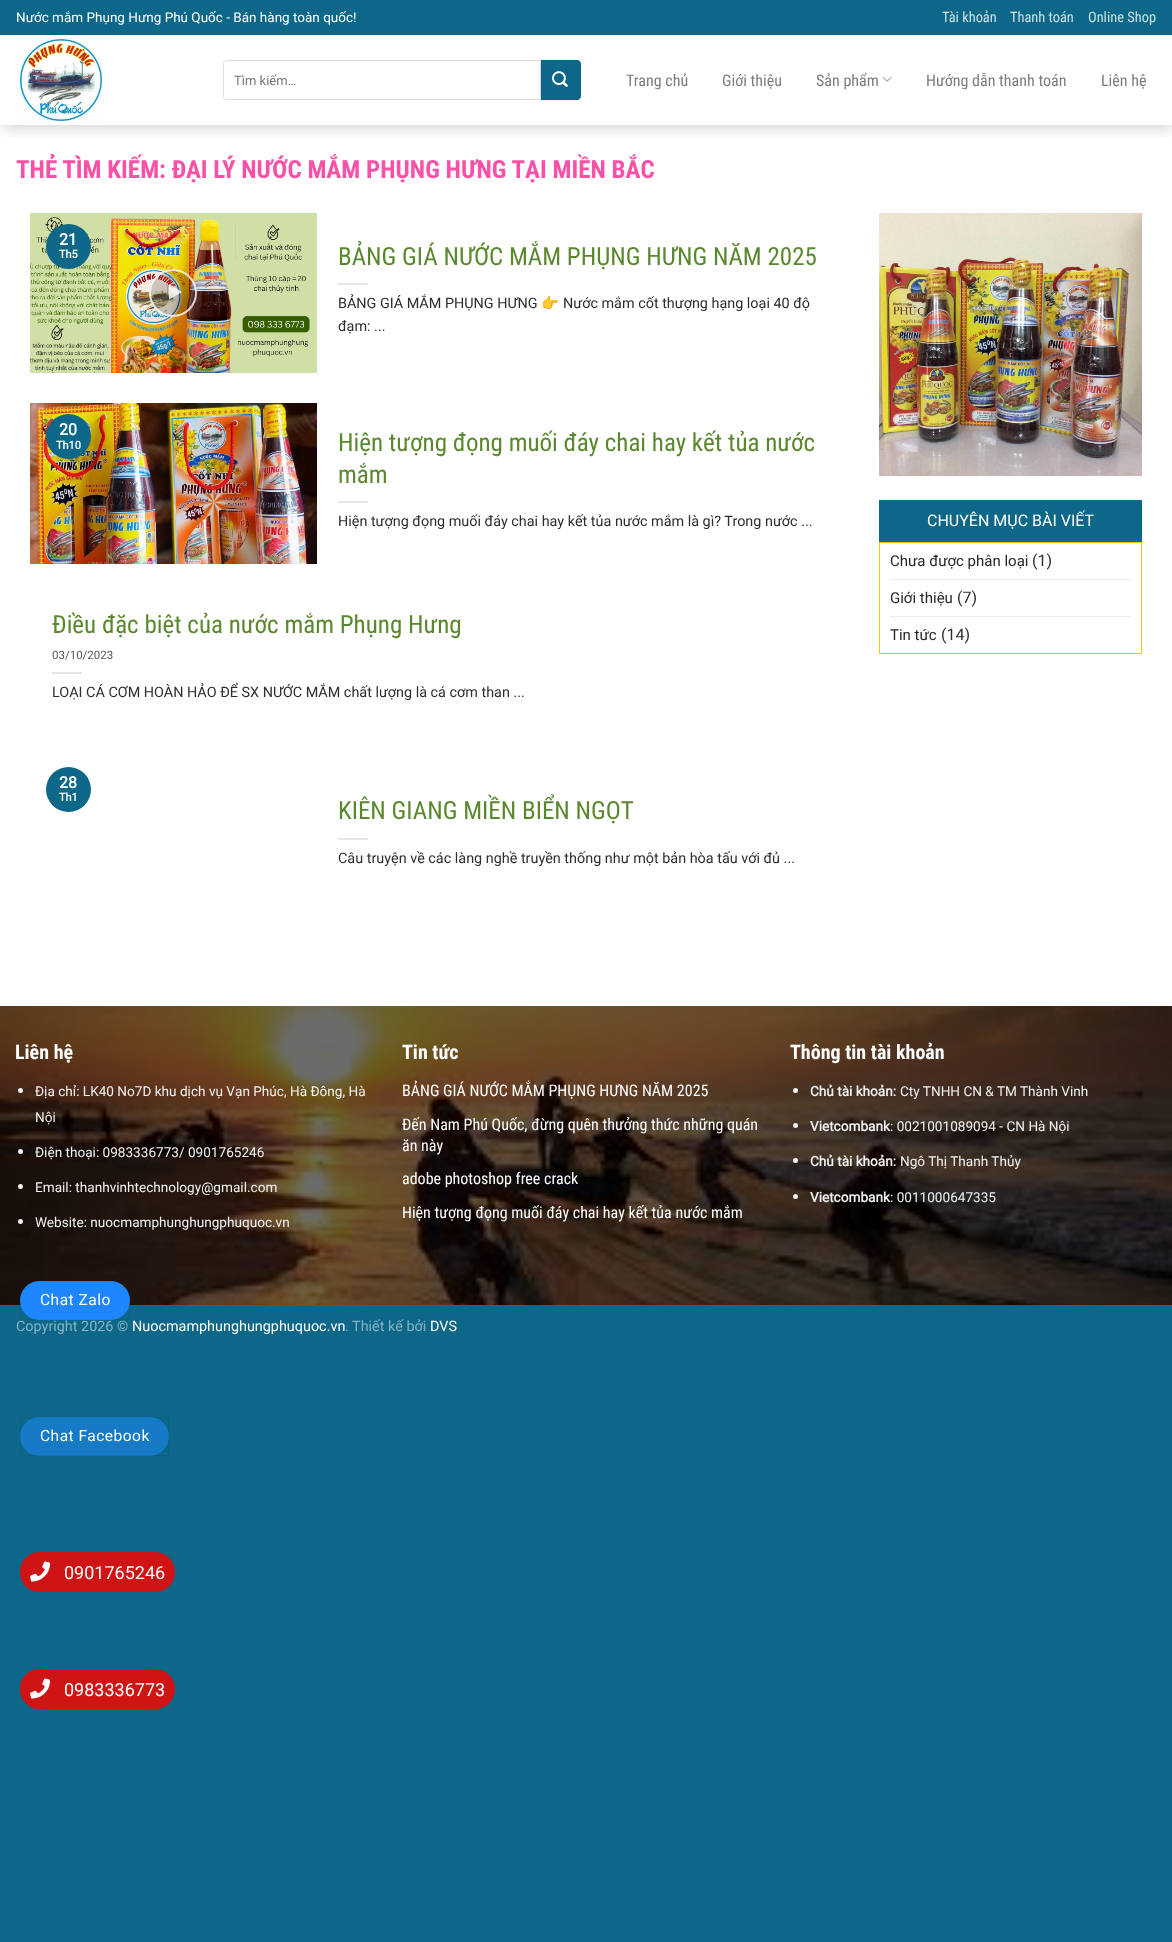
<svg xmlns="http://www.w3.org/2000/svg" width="1172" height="1942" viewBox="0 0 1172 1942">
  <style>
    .t1 { font: 13.5px Roboto; fill: #fff; }
    .t2 { font: 14.4px Roboto Condensed; fill: #cee1e7; }
    .t3 { font: 13px Roboto; fill: #757575; }
    .t4 { font: 16px Roboto Condensed; fill: #7d7d7d; }
    .t5 { font: bold 25px Roboto Condensed; fill: #f851a7; }
    .t6 { font: bold 16px Roboto; fill: #fff; }
    .t7 { font: bold 11px Roboto; fill: #fff; }
    .t8 { font: 25px Roboto Condensed; fill: #5a882e; }
    .t9 { font: 14.4px Roboto; fill: #2d2d2d; }
    .t10 { font: 14.4px Noto Color Emoji; fill: #2d2d2d; }
    .t11 { font: 11.5px Roboto; fill: #575757; }
    .t12 { font: 16px Roboto; fill: #fff; }
    .t13 { font: 15px Roboto; fill: #262626; }
    .t14 { font: 16px Roboto; fill: #2d2d2d; }
    .t15 { font: bold 20px Roboto Condensed; fill: #fff; }
    .t16 { font: 13.6px Roboto; fill: #f1f1f1; }
    .t17 { font: 16px Roboto Condensed; fill: #fff; }
    .t18 { font: bold 13.6px Roboto; fill: #f1f1f1; }
    .t19 { font: 14.4px Roboto; fill: #86b3c4; }
    .t20 { font: 14.4px Roboto; fill: #fff; }
    .t21 { font: 15.5px Roboto; letter-spacing: 0.5px; fill: #fff; }
    .t22 { font: 18px Roboto; fill: #fff; }
  </style>
  <defs>
    <clipPath id="clip1"><rect x="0" y="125" width="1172" height="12"/></clipPath>
  </defs>
  <rect width="100%" height="100%" fill="#0c6788"/>
  <rect x="0" y="35" width="1172" height="971" fill="#fff"/>
  <g clip-path="url(#clip1)">
    <rect x="2" y="37" width="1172" height="90" fill="#00000033" filter="blur(7.5px)"/>
  </g>
  <rect x="0" y="27" width="1172" height="8" fill="#0c6788"/>
  <text x="16" y="22" class="t1">Nước mắm Phụng Hưng Phú Quốc - Bán hàng toàn quốc!</text>
  <text x="942" y="22" class="t2">Tài khoản</text>
  <text x="1010" y="22" class="t2">Thanh toán</text>
  <text x="1088" y="22" class="t2">Online Shop</text>
  <image x="18" y="37" width="85" height="85" href="images/1.png"/>
  <path d="M227 60.5H540.5V99.5H227C225 99.5 223.5 98 223.5 96V64C223.5 62 225 60.5 227 60.5Z" fill="none" stroke="#ddd"/>
  <text x="234" y="85" class="t3">Tìm kiếm…</text>
  <path d="M541 60H577C579 60 581 62 581 64V96C581 98 579 100 577 100H541Z" fill="#0c6788"/>
  <rect x="541.5" y="60.5" width="39" height="39" fill="none" stroke="#0000000d"/>
  <image x="552" y="71" width="16" height="16" href="images/2.png"/>
  <text x="626" y="86" class="t4">Trang chủ</text>
  <text x="722" y="86" class="t4">Giới thiệu</text>
  <text x="816" y="86" class="t4">Sản phẩm</text>
  <image x="882" y="76" width="10" height="6" href="images/3.png"/>
  <text x="926" y="86" class="t4">Hướng dẫn thanh toán</text>
  <text x="1101" y="86" class="t4">Liên hệ</text>
  <text x="16" y="178" class="t5">THẺ TÌM KIẾM: ĐẠI LÝ NƯỚC MẮM PHỤNG HƯNG TẠI MIỀN BẮC</text>
  <image x="30" y="213" width="287" height="160" href="images/4.png"/>
  <circle cx="173" cy="293" r="24" fill="#00000029"/>
  <circle cx="173" cy="293" r="23" fill="none" stroke="#ffffffcc" stroke-width="2"/>
  <path d="M169 284L182 292L169 299.5Z" fill="#ffffffcc"/>
  <circle cx="68.5" cy="246.5" r="22.5" fill="#0c6788"/>
  <text x="59" y="245" class="t6">21</text>
  <text x="59" y="258" class="t7">Th5</text>
  <text x="338" y="265" class="t8">BẢNG GIÁ NƯỚC MẮM PHỤNG HƯNG NĂM 2025</text>
  <rect x="338" y="283" width="30" height="2" fill="#e6e6e6"/>
  <text x="338" y="308" class="t9">BẢNG GIÁ MẮM PHỤNG HƯNG</text>
  <text x="541" y="308" class="t10">👉</text>
  <text x="563" y="308" class="t9">Nước mắm cốt thượng hạng loại 40 độ</text>
  <text x="338" y="331" class="t9">đạm: ...</text>
  <image x="30" y="403" width="287" height="161" href="images/5.png"/>
  <circle cx="68.5" cy="436.5" r="22.5" fill="#0c6788"/>
  <text x="59" y="435" class="t6">20</text>
  <text x="56" y="449" class="t7">Th10</text>
  <text x="338" y="451" class="t8">Hiện tượng đọng muối đáy chai hay kết tủa nước</text>
  <text x="338" y="483" class="t8">mắm</text>
  <rect x="338" y="501" width="30" height="2" fill="#e6e6e6"/>
  <text x="338" y="526" class="t9">Hiện tượng đọng muối đáy chai hay kết tủa nước mắm là gì? Trong nước ...</text>
  <text x="52" y="633" class="t8">Điều đặc biệt của nước mắm Phụng Hưng</text>
  <text x="52" y="659" class="t11">03/10/2023</text>
  <rect x="52" y="672" width="30" height="2" fill="#e6e6e6"/>
  <text x="52" y="697" class="t9">LOẠI CÁ CƠM HOÀN HẢO ĐỂ SX NƯỚC MẮM chất lượng là cá cơm than ...</text>
  <circle cx="68.5" cy="789.5" r="22.5" fill="#0c6788"/>
  <text x="59" y="788" class="t6">28</text>
  <text x="59" y="801" class="t7">Th1</text>
  <text x="338" y="819" class="t8">KIÊN GIANG MIỀN BIỂN NGỌT</text>
  <rect x="338" y="838" width="30" height="2" fill="#e6e6e6"/>
  <text x="338" y="863" class="t9">Câu truyện về các làng nghề truyền thống như một bản hòa tấu với đủ ...</text>
  <image x="879" y="213" width="263" height="263" href="images/6.png"/>
  <rect x="879" y="500" width="263" height="42" fill="#0c6788"/>
  <text x="927" y="526" class="t12">CHUYÊN MỤC BÀI VIẾT</text>
  <rect x="879.5" y="542.5" width="262" height="111" fill="none" stroke="#fdc215"/>
  <text x="890" y="566" class="t13">Chưa được phân loại</text>
  <text x="1032" y="566" class="t14">(1)</text>
  <rect x="890" y="579" width="241" height="1" fill="#ececec"/>
  <text x="890" y="603" class="t13">Giới thiệu</text>
  <text x="957" y="603" class="t14">(7)</text>
  <rect x="890" y="616" width="241" height="1" fill="#ececec"/>
  <text x="890" y="640" class="t13">Tin tức</text>
  <text x="941" y="640" class="t14">(14)</text>
  <image x="0" y="1006" width="1172" height="299" href="images/7.png"/>
  <text x="15" y="1059" class="t15">Liên hệ</text>
  <circle cx="20.5" cy="1090.5" r="2.5" fill="#f1f1f1"/>
  <text x="35" y="1096" class="t16">Địa chỉ: LK40 No7D khu dịch vụ Vạn Phúc, Hà Đông, Hà</text>
  <text x="35" y="1122" class="t16">Nội</text>
  <circle cx="20.5" cy="1151.5" r="2.5" fill="#f1f1f1"/>
  <text x="35" y="1157" class="t16">Điện thoại: 0983336773/ 0901765246</text>
  <circle cx="20.5" cy="1186.5" r="2.5" fill="#f1f1f1"/>
  <text x="35" y="1192" class="t16">Email: thanhvinhtechnology@gmail.com</text>
  <circle cx="20.5" cy="1221.5" r="2.5" fill="#f1f1f1"/>
  <text x="35" y="1227" class="t16">Website: nuocmamphunghungphuquoc.vn</text>
  <text x="402" y="1059" class="t15">Tin tức</text>
  <text x="402" y="1096" class="t17">BẢNG GIÁ NƯỚC MẮM PHỤNG HƯNG NĂM 2025</text>
  <text x="402" y="1130" class="t17">Đến Nam Phú Quốc, đừng quên thưởng thức những quán</text>
  <text x="402" y="1151" class="t17">ăn này</text>
  <text x="402" y="1184" class="t17">adobe photoshop free crack</text>
  <text x="402" y="1218" class="t17">Hiện tượng đọng muối đáy chai hay kết tủa nước mắm</text>
  <text x="790" y="1059" class="t15">Thông tin tài khoản</text>
  <circle cx="795.5" cy="1090.5" r="2.5" fill="#f1f1f1"/>
  <text x="810" y="1096" class="t18">Chủ tài khoản:</text>
  <text x="900" y="1096" class="t16">Cty TNHH CN &amp; TM Thành Vinh</text>
  <circle cx="795.5" cy="1125.5" r="2.5" fill="#f1f1f1"/>
  <text x="810" y="1131" class="t18">Vietcombank</text>
  <text x="890" y="1131" class="t16">: 0021001089094 - CN Hà Nội</text>
  <circle cx="795.5" cy="1160.5" r="2.5" fill="#f1f1f1"/>
  <text x="810" y="1166" class="t18">Chủ tài khoản:</text>
  <text x="900" y="1166" class="t16">Ngô Thị Thanh Thủy</text>
  <circle cx="795.5" cy="1196.5" r="2.5" fill="#f1f1f1"/>
  <text x="810" y="1202" class="t18">Vietcombank</text>
  <text x="890" y="1202" class="t16">: 0011000647335</text>
  <text x="16" y="1331" class="t19">Copyright 2026 ©</text>
  <text x="132" y="1331" class="t20">Nuocmamphunghungphuquoc.vn</text>
  <text x="345" y="1331" class="t19">. Thiết kế bởi</text>
  <text x="430" y="1331" class="t20">DVS</text>
  <rect x="20" y="1281" width="110" height="39" rx="19.5" fill="#1e87ff"/>
  <rect x="20.5" y="1281.5" width="109" height="38" fill="none" stroke="#0000000d"/>
  <text x="40" y="1305" class="t21">Chat Zalo</text>
  <rect x="20" y="1417" width="149" height="39" rx="19.5" fill="#167ac6"/>
  <rect x="20.5" y="1417.5" width="148" height="38" fill="none" stroke="#0000000d"/>
  <text x="40" y="1441" class="t21">Chat Facebook</text>
  <rect x="20" y="1552" width="155" height="40" rx="20" fill="#ce1414"/>
  <circle cx="40" cy="1572" r="20" fill="#ce1414"/>
  <image x="30" y="1561" width="20" height="21" href="images/8.png"/>
  <text x="64" y="1579" class="t22">0901765246</text>
  <rect x="20" y="1669" width="155" height="40" rx="20" fill="#ce1414"/>
  <circle cx="40" cy="1689" r="20" fill="#ce1414"/>
  <image x="30" y="1678" width="20" height="21" href="images/8.png"/>
  <text x="64" y="1696" class="t22">0983336773</text>
</svg>
